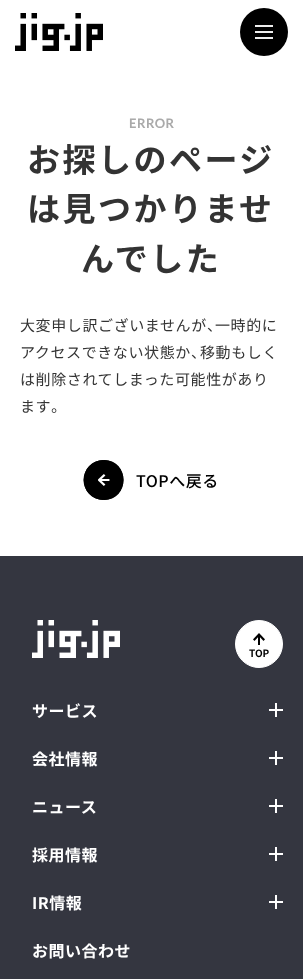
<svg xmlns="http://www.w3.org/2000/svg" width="303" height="979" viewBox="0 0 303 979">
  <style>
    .t1 { font: bold 13px Lato; letter-spacing: 0.5px; fill: #aaa; }
    .t2 { font: bold 33px Noto Sans JP; letter-spacing: 2.5px; fill: #333; }
    .t3 { font: 15px Noto Sans JP; letter-spacing: 0.6px; fill: #333; }
    .t4 { font: 15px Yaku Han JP; letter-spacing: 0.6px; fill: #333; }
    .t5 { font: 500 16px Noto Sans JP; letter-spacing: 0.5px; fill: #000; }
    .t6 { font: bold 10px Noto Sans JP; fill: #000; }
    .t7 { font: bold 16px Noto Sans JP; letter-spacing: 0.5px; fill: #fff; }
  </style>
  <rect width="100%" height="100%" fill="#fff"/>
  <image x="15" y="13" width="88" height="38" href="images/1.png"/>
  <circle cx="264" cy="32" r="24" fill="#000"/>
  <rect x="255" y="25" width="18" height="2" fill="#eee"/>
  <rect x="255" y="31" width="18" height="2" fill="#eee"/>
  <rect x="255" y="37" width="18" height="2" fill="#eee"/>
  <text x="129" y="128" class="t1">ERROR</text>
  <text x="27" y="172" class="t2">お探しのページ</text>
  <text x="27" y="221" class="t2">は見つかりませ</text>
  <text x="81" y="271" class="t2">んでした</text>
  <text x="20" y="331" class="t3">大変申し訳ございませんが</text>
  <text x="207" y="331" class="t4">、</text>
  <text x="215" y="331" class="t3">一時的に</text>
  <text x="20" y="358" class="t3">アクセスできない状態か</text>
  <text x="191" y="358" class="t4">、</text>
  <text x="200" y="358" class="t3">移動もしく</text>
  <text x="20" y="385" class="t3">は削除されてしまった可能性があり</text>
  <text x="20" y="412" class="t3">ます</text>
  <text x="51" y="412" class="t4">。</text>
  <path d="M104 460C77 460 77 500 104 500C130 500 130 460 104 460Z" fill="#000"/>
  <path d="M103.5 460.5C93 460.5 84 469 84 480C84 491 93 499.5 103.5 499.5C114.5 499.5 123 491 123 480C123 469 114.5 460.5 103.5 460.5Z" fill="none" stroke="#000"/>
  <image x="98" y="474" width="12" height="12" href="images/2.png"/>
  <text x="136" y="487" class="t5">TOPへ戻る</text>
  <rect x="0" y="556" width="303" height="423" fill="#343640"/>
  <image x="32" y="620" width="88" height="38" href="images/3.png"/>
  <circle cx="259" cy="644" r="23.5" fill="#fff" stroke="#fff"/>
  <image x="253" y="633" width="12" height="12" href="images/4.png"/>
  <text x="249" y="657" class="t6">TOP</text>
  <text x="32" y="717" class="t7">サービス</text>
  <rect x="269" y="709" width="14" height="2" fill="#fff"/>
  <rect x="275" y="703" width="2" height="14" fill="#fff"/>
  <text x="32" y="765" class="t7">会社情報</text>
  <rect x="269" y="757" width="14" height="2" fill="#fff"/>
  <rect x="275" y="751" width="2" height="14" fill="#fff"/>
  <text x="32" y="813" class="t7">ニュース</text>
  <rect x="269" y="805" width="14" height="2" fill="#fff"/>
  <rect x="275" y="799" width="2" height="14" fill="#fff"/>
  <text x="32" y="861" class="t7">採用情報</text>
  <rect x="269" y="853" width="14" height="2" fill="#fff"/>
  <rect x="275" y="847" width="2" height="14" fill="#fff"/>
  <text x="32" y="909" class="t7">IR情報</text>
  <rect x="269" y="901" width="14" height="2" fill="#fff"/>
  <rect x="275" y="895" width="2" height="14" fill="#fff"/>
  <text x="32" y="957" class="t7">お問い合わせ</text>
</svg>
